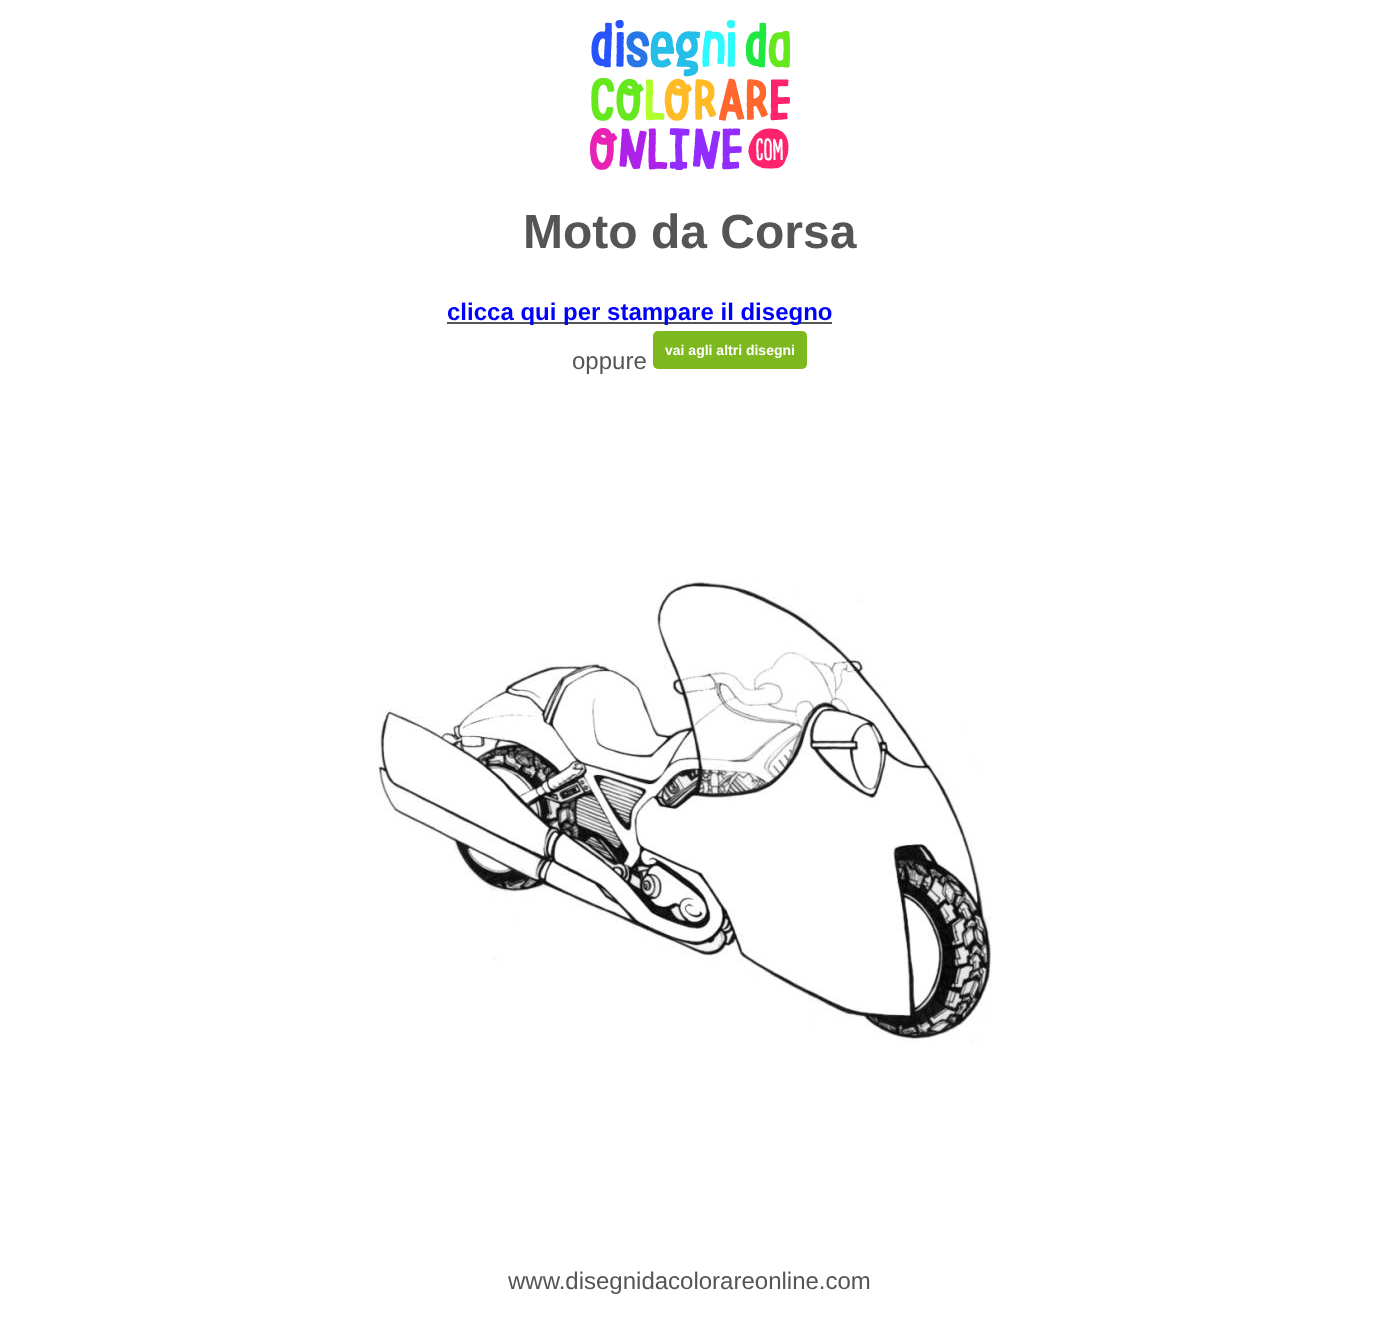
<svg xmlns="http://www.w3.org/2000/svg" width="1379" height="1343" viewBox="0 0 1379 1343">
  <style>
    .t1 { font: bold 48px Liberation Sans; fill: #555; }
    .t2 { font: bold 24px Liberation Sans; fill: #00f; }
    .t3 { font: bold 14px Liberation Sans; fill: #fff; }
    .t4 { font: 24px Liberation Sans; fill: #555; }
  </style>
  <rect width="100%" height="100%" fill="#fff"/>
  <image x="590" y="20" width="200" height="150" href="images/1.png"/>
  <text x="523" y="248" class="t1">Moto da Corsa</text>
  <rect x="447" y="322" width="385" height="2" fill="#555"/>
  <text x="447" y="320" class="t2">clicca qui per stampare il disegno</text>
  <rect x="653" y="331" width="154" height="38" rx="5" fill="#7cb81e"/>
  <text x="665" y="355" class="t3">vai agli altri disegni</text>
  <text x="572" y="369" class="t4">oppure</text>
  <image x="376" y="580" width="616" height="464" href="images/2.png"/>
  <text x="508" y="1289" class="t4">www.disegnidacolorareonline.com</text>
</svg>
